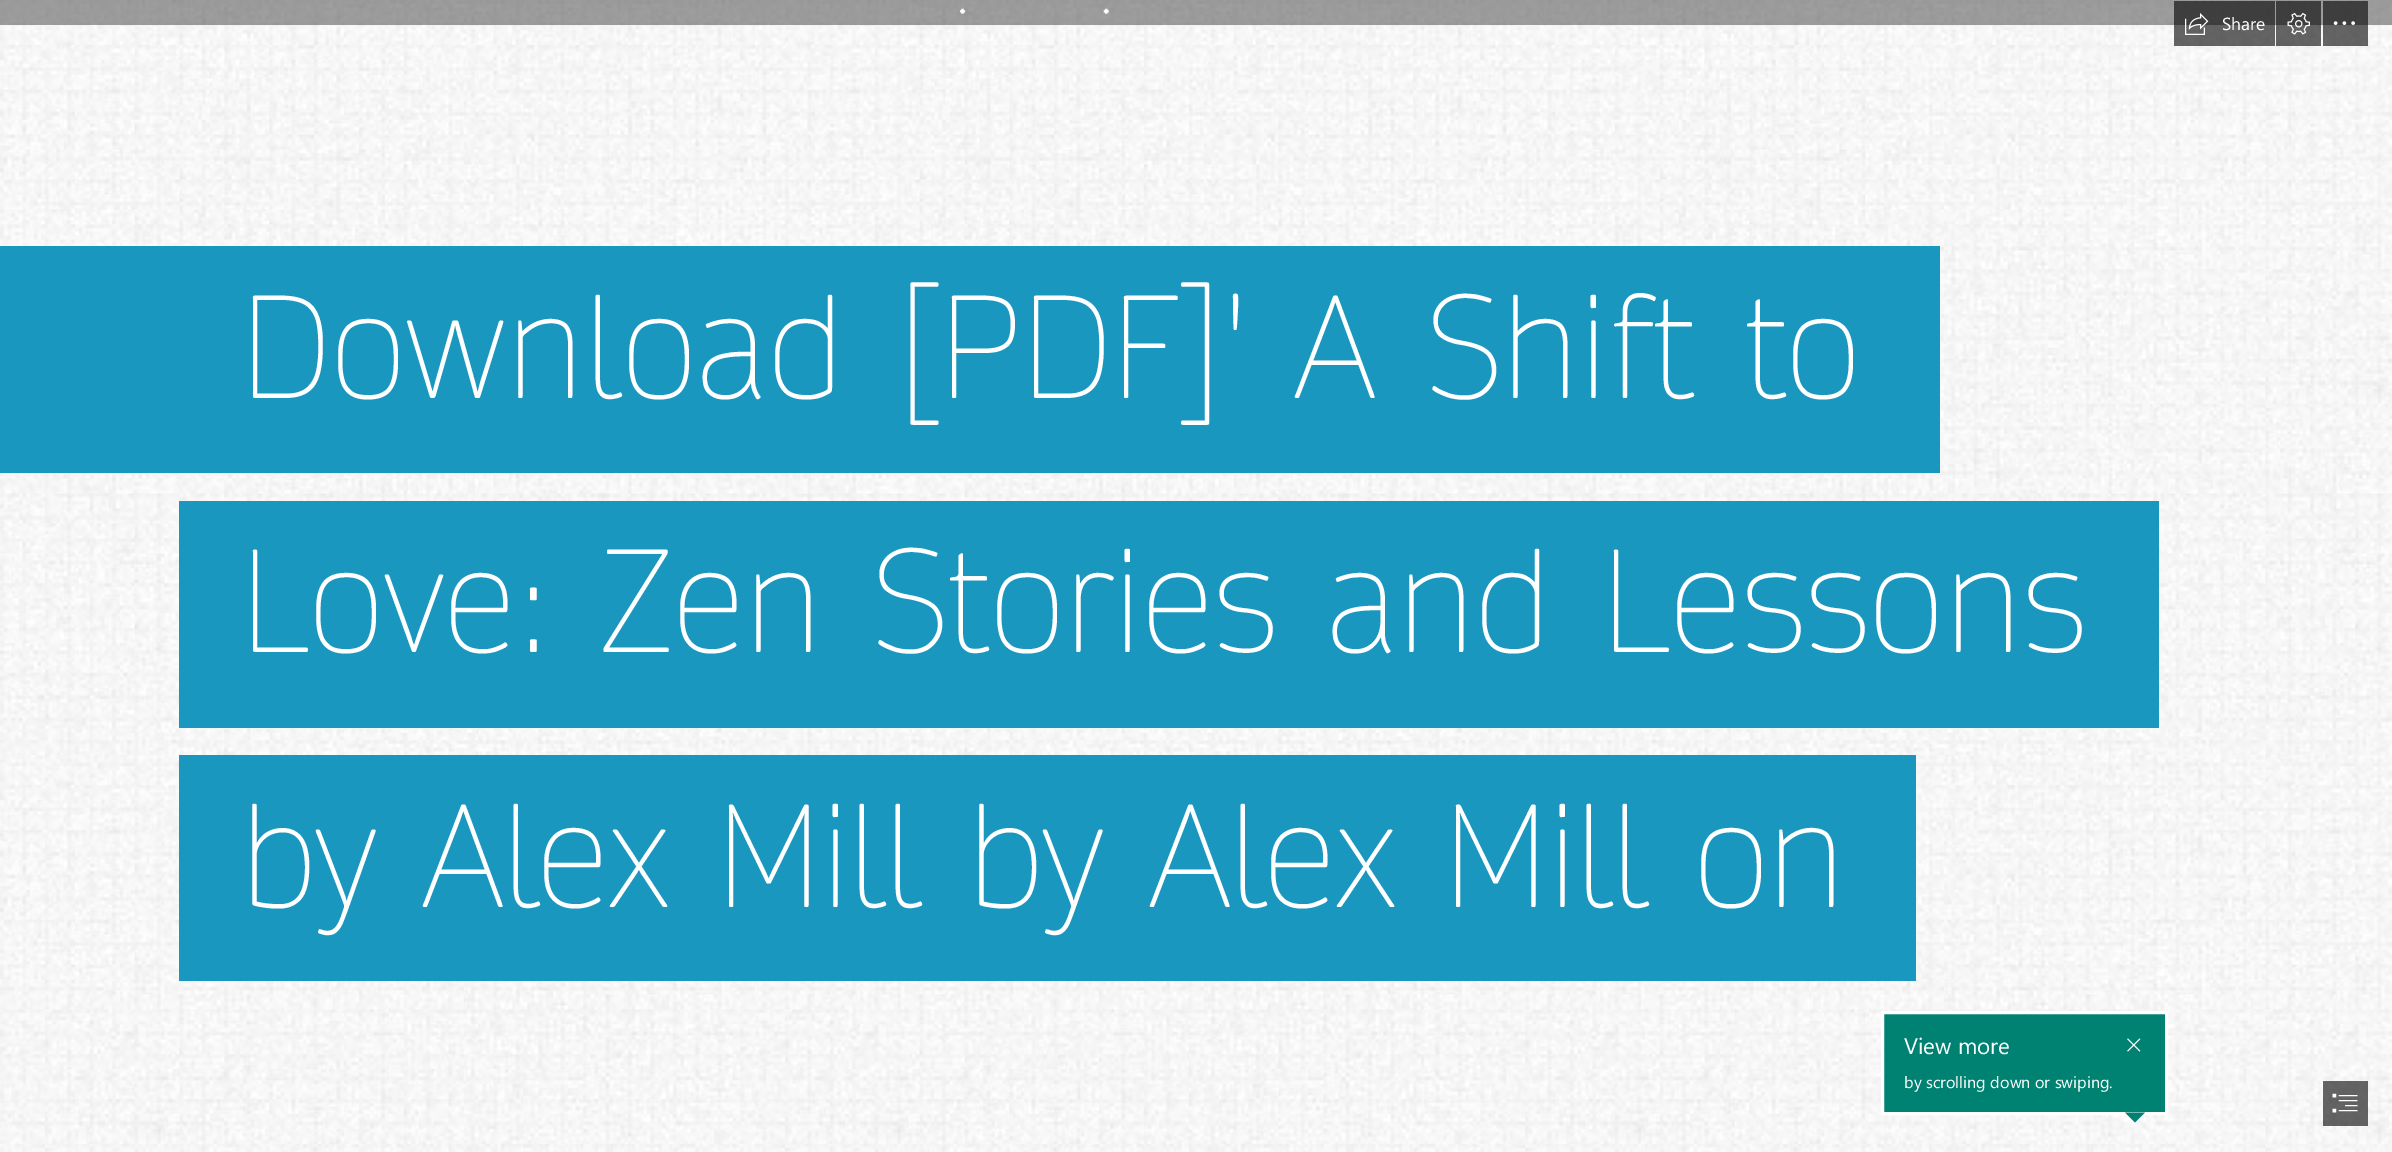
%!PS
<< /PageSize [2392 1152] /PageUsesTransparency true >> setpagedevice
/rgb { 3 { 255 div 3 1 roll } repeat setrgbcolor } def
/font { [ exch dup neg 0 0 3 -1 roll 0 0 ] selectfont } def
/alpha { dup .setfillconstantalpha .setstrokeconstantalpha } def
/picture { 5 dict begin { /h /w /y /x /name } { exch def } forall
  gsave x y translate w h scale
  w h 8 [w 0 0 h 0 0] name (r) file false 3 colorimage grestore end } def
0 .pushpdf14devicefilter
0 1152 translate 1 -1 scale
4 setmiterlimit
234 234 234 rgb
0 0 2392 1152 rectfill
(img/5.rgb) 0 0 2392 1152 picture
0.5 alpha
64 64 64 rgb
0 0 2392 25 rectfill
0.6 alpha
0 0 0 rgb
2174 1 101 45 rectfill
1 alpha
(img/1.rgb) 2185 13 24 22 picture
0.6 alpha
2276 1 45 45 rectfill
1 alpha
(img/2.rgb) 2287 12 23 23 picture
0.6 alpha
2323 1 45 45 rectfill
1 alpha
(img/3.rgb) 2333 21 22 4 picture
(img/4.rgb) 959 8 150 6 picture
[
  [0 246 1940 227 25 151 190]
  [179 501 1980 227 25 151 190]
  [179 755 1737 226 25 151 190]
] { aload pop rgb rectfill } forall
0 130 114 rgb
1882.5 1012.5 moveto 2166.5 1012.5 lineto 2166.5 1113.5 lineto 1882.5 1113.5 lineto closepath gsave fill grestore
255 255 255 rgb
3 setlinewidth
stroke
(img/6.rgb) 2127 1038 14 14 picture
2122.5 1112.5 moveto 2147.5 1112.5 lineto 2135 1125 lineto closepath fill
0 130 114 rgb
2125 1112.5 moveto 2145 1112.5 lineto 2135 1122.5 lineto closepath fill
0.6 alpha
0 0 0 rgb
2323 1081 45 45 rectfill
1 alpha
(img/7.rgb) 2332 1093 26 20 picture
/SegoeUI-Regular 17.5 font
255 255 255 rgb
2222 30 moveto (Share) show
/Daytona-Thin 140.25 font
239 398 moveto -1.6 0 (Download [PDF]' A Shift to) ashow
239 652 moveto -1.8 0 (Love: Zen Stories and Lessons) ashow
239 907 moveto -3.25 0 (by Alex Mill by Alex Mill on) ashow
/SegoeUI-Regular 22.5 font
1904 1054 moveto (View more) show
/SegoeUI-Regular 16.25 font
1904 1088 moveto (by scrolling down or swiping.) show
.poppdf14devicefilter showpage
